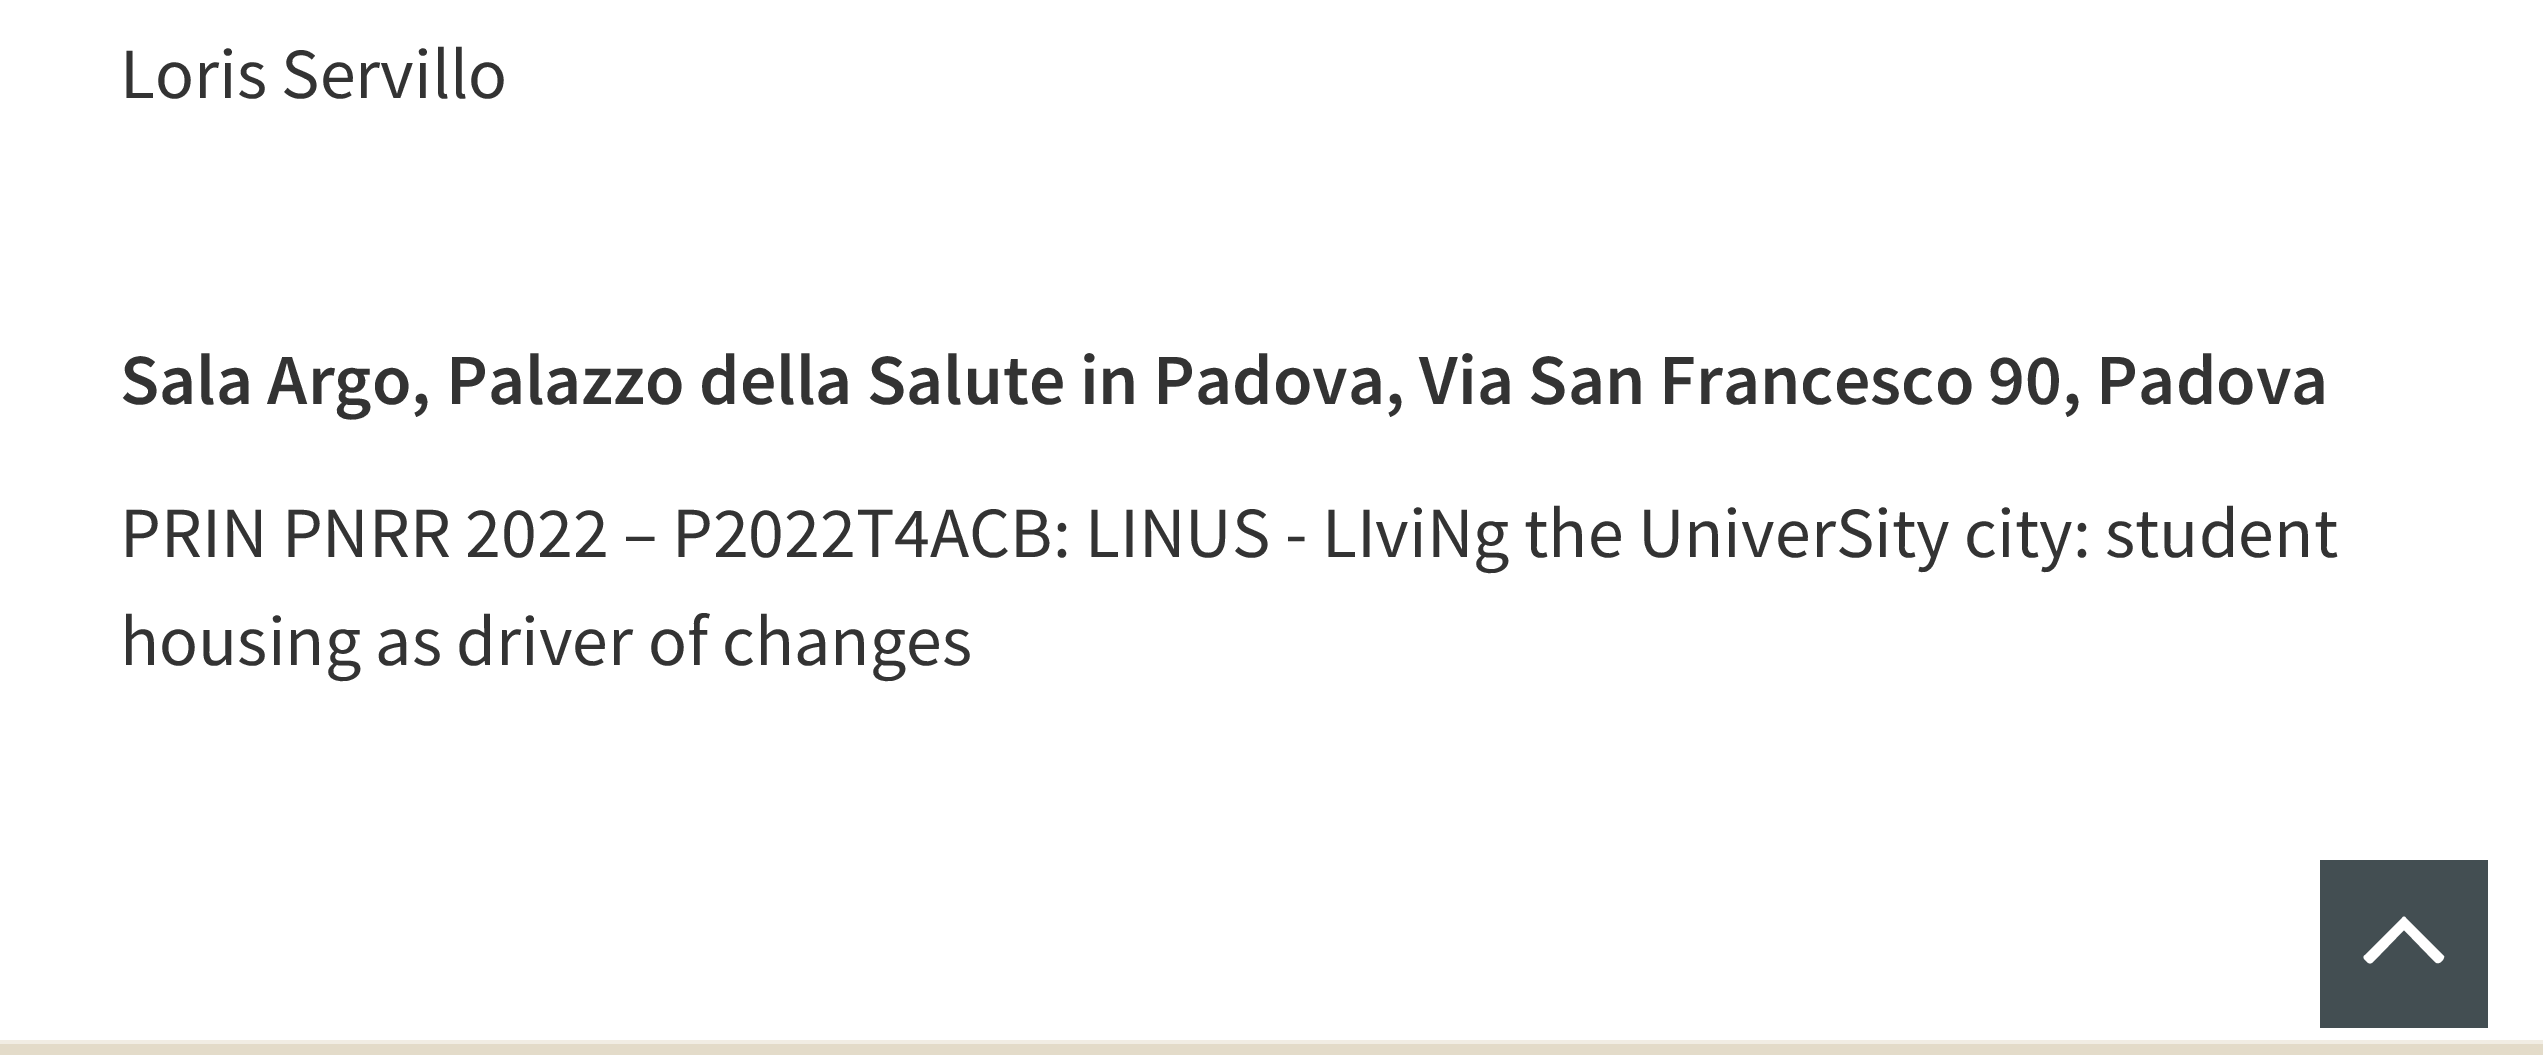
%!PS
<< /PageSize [2543 1055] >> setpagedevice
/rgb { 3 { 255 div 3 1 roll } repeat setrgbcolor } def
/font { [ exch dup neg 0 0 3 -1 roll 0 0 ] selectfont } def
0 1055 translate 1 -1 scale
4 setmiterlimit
255 255 255 rgb
0 0 2543 1055 rectfill
67 78 82 rgb
2320 860 168 168 rectfill
255 255 255 rgb
2406 918 moveto 2444 956 lineto 2445 959 2439 966 2435 962 curveto 2404 930 lineto 2373 962 lineto 2371 964 2369 964 2367 962 curveto 2365 960 lineto 2363 958 2363 956 2365 955 curveto 2402 918 lineto 2403 916 2405 916 2406 918 curveto closepath fill
227 219 201 rgb
0 1044 2543 11 rectfill
241 237 228 rgb
0 1040 2543 4 rectfill
/SourceSansPro-Regular 72 font
51 51 51 rgb
120 98 moveto (Loris Servillo) show
/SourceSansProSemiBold-SemiBold 72 font
120 404 moveto (Sala Argo, Palazzo della Salute in Padova, Via San Francesco 90, Padova) show
/SourceSansPro-Regular 72 font
120 557 moveto (PRIN PNRR 2022 – P2022T4ACB: LINUS - LIviNg the UniverSity city: student) show
120 665 moveto (housing as driver of changes) show
showpage
